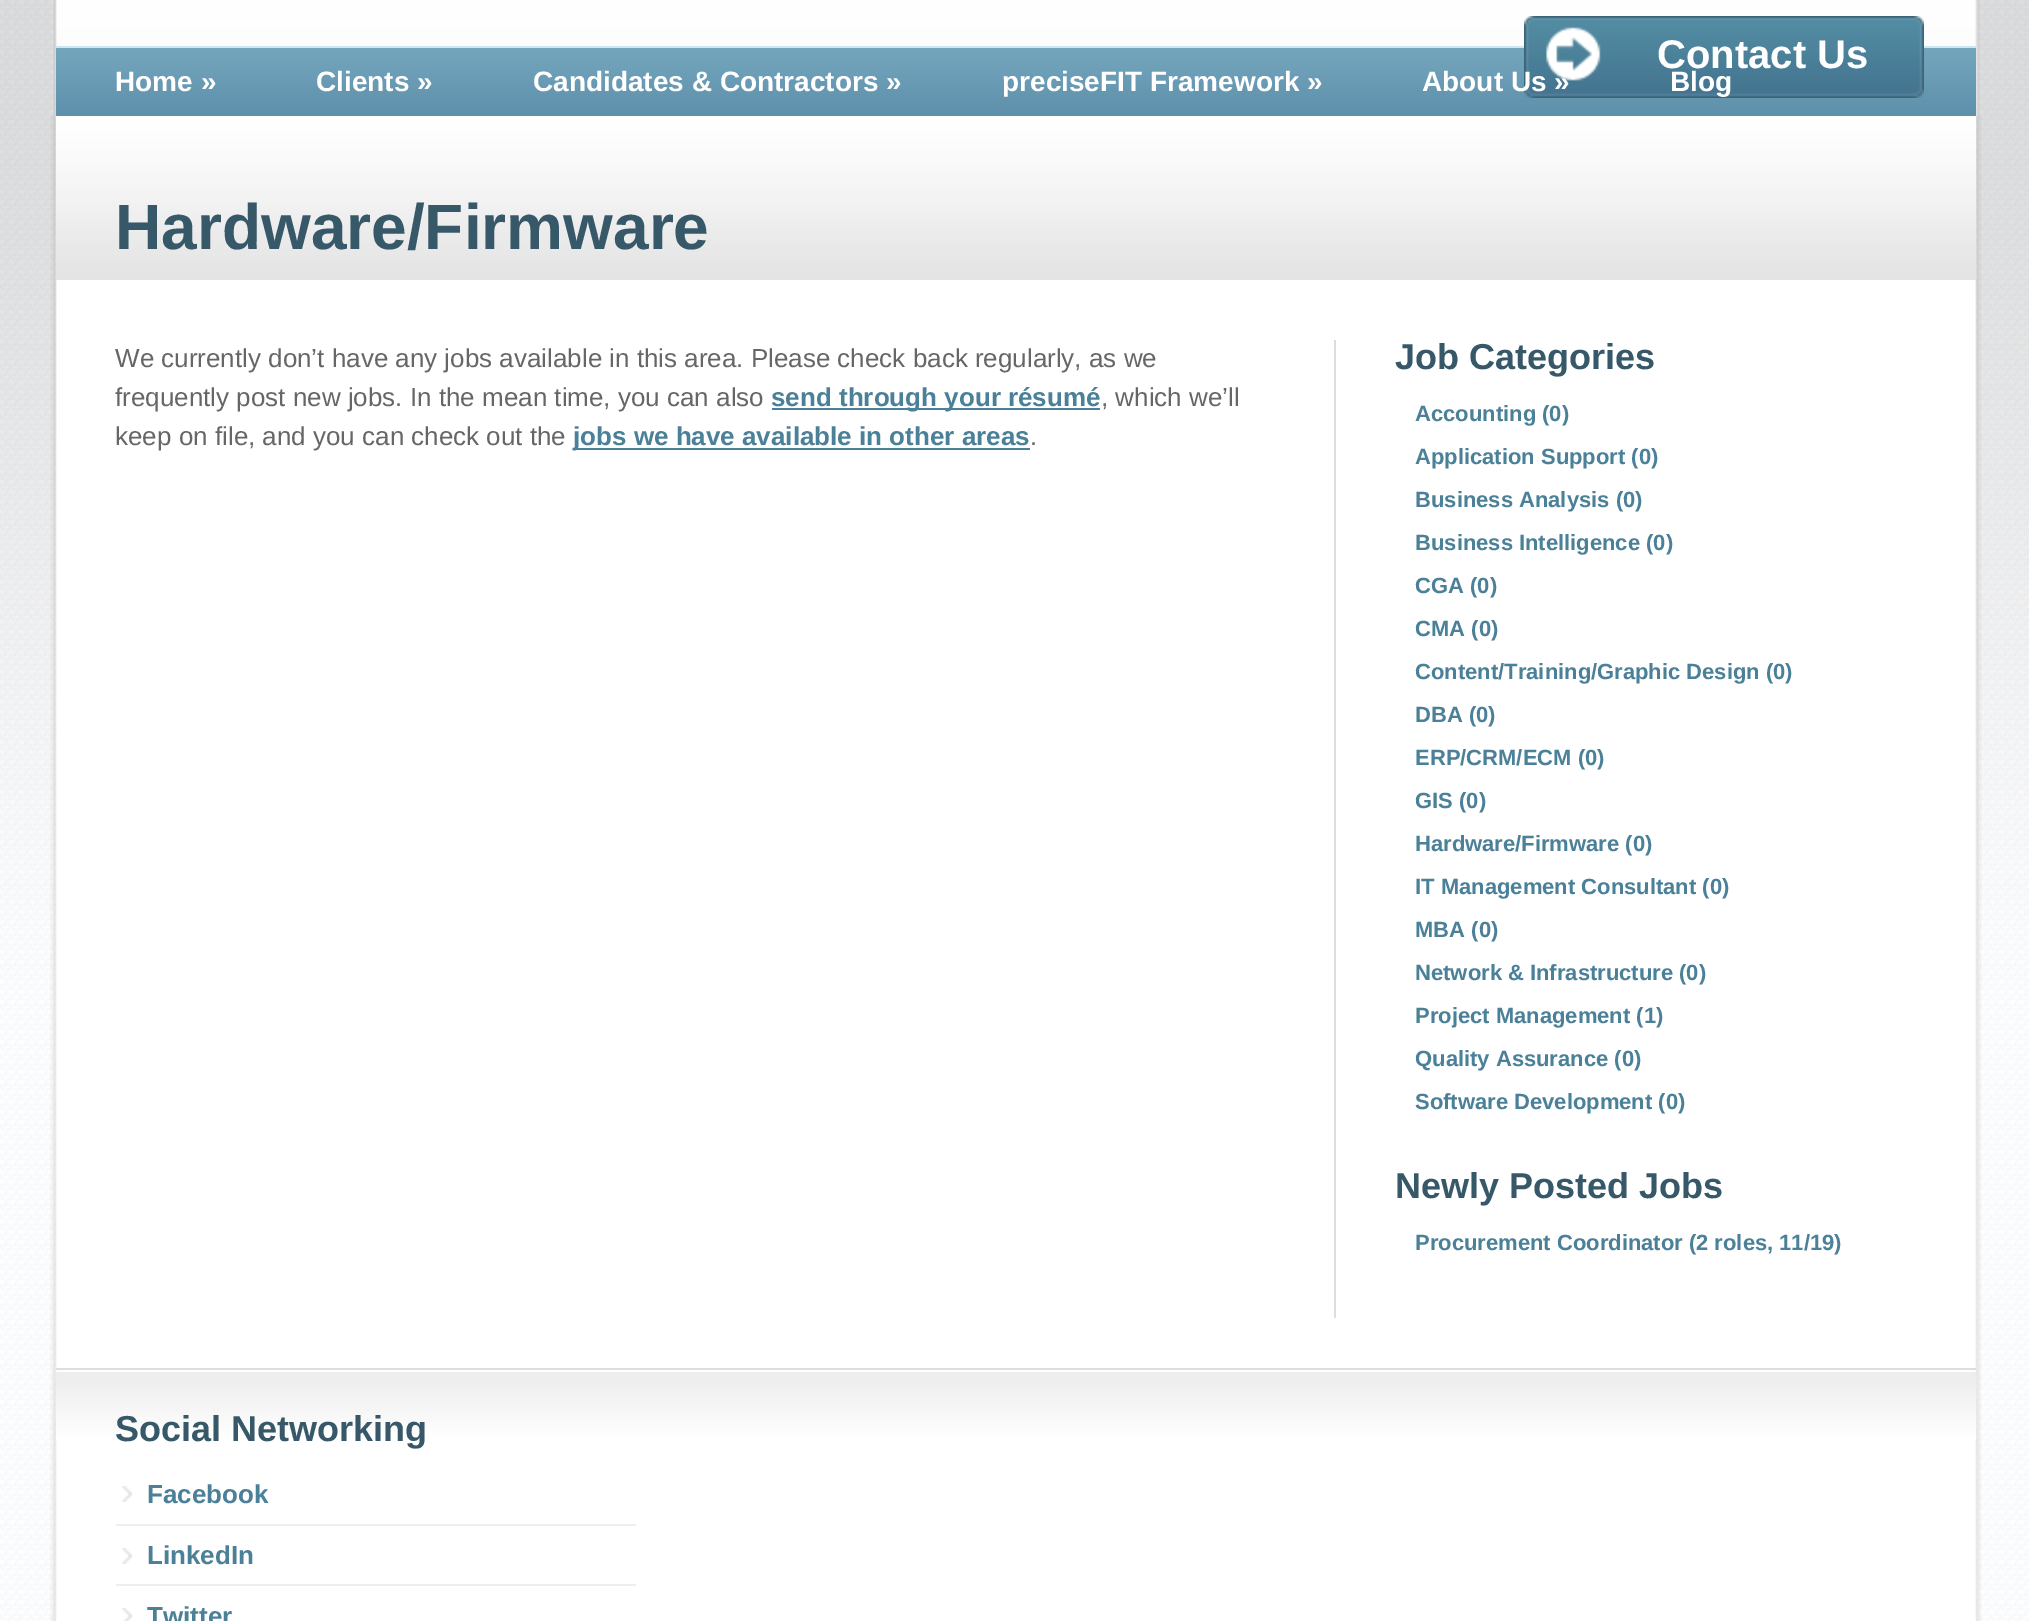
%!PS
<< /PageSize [2029 1621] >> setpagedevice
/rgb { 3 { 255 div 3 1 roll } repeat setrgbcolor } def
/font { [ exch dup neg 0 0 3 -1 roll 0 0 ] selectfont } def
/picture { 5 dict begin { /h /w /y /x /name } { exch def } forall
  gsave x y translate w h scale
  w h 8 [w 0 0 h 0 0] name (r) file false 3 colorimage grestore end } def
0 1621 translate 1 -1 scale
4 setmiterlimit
255 255 255 rgb
0 0 2029 1621 rectfill
(img/1.rgb) 0 0 2029 1621 picture
(img/2.rgb) 53 0 1927 116 picture
(img/5.rgb) 56 48 1920 68 picture
206 230 241 rgb
56 46 1920 2 rectfill
(img/3.rgb) 1524 16 92 82 picture
(img/4.rgb) 1616 16 308 82 picture
(img/6.rgb) 50 116 1932 1505 picture
(img/7.rgb) 56 116 1920 164 picture
[
  [772 408 328 2 75 128 153]
  [574 448 456 2 75 128 153]
  [1334 340 2 978 221 221 221]
] { aload pop rgb rectfill } forall
(img/8.rgb) 56 1372 1920 68 picture
56 1368 1920 2 rectfill
(img/9.rgb) 122 1486 10 16 picture
238 238 238 rgb
116 1524 520 2 rectfill
(img/9.rgb) 122 1548 10 16 picture
116 1584 520 2 rectfill
(img/10.rgb) 122 1608 10 13 picture
/LiberationSans-Bold 40 font
255 255 255 rgb
1657 68 moveto (Contact Us) show
/LiberationSans-Bold 28 font
[
  [(Home ») 115 91]
  [(Clients ») 316 91]
  [(Candidates & Contractors ») 533 91]
  [(preciseFIT Framework ») 1002 91]
  [(About Us ») 1422 91]
  [(Blog) 1670 91]
] { aload pop moveto show } forall
/LiberationSans-Bold 64 font
54 88 104 rgb
115 249 moveto (Hardware/Firmware) show
/LiberationSans-Regular 26 font
102 102 102 rgb
115 367 moveto (We currently don’t have any jobs available in this area. Please check back regularly, as we) show
115 406 moveto (frequently post new jobs. In the mean time, you can also) show
/LiberationSans-Bold 26 font
75 128 153 rgb
771 406 moveto (send through your résumé) show
/LiberationSans-Regular 26 font
102 102 102 rgb
1101 406 moveto (, which we’ll) show
115 445 moveto (keep on file, and you can check out the) show
/LiberationSans-Bold 26 font
75 128 153 rgb
573 445 moveto (jobs we have available in other areas) show
/LiberationSans-Regular 26 font
102 102 102 rgb
1030 445 moveto (.) show
/LiberationSans-Bold 36 font
54 88 104 rgb
1395 369 moveto (Job Categories) show
/LiberationSans-Bold 22 font
75 128 153 rgb
[
  [(Accounting \(0\)) 1415 421]
  [(Application Support \(0\)) 1415 464]
  [(Business Analysis \(0\)) 1415 507]
  [(Business Intelligence \(0\)) 1415 550]
  [(CGA \(0\)) 1415 593]
  [(CMA \(0\)) 1415 636]
  [(Content/Training/Graphic Design \(0\)) 1415 679]
  [(DBA \(0\)) 1415 722]
  [(ERP/CRM/ECM \(0\)) 1415 765]
  [(GIS \(0\)) 1415 808]
  [(Hardware/Firmware \(0\)) 1415 851]
  [(IT Management Consultant \(0\)) 1415 894]
  [(MBA \(0\)) 1415 937]
  [(Network & Infrastructure \(0\)) 1415 980]
  [(Project Management \(1\)) 1415 1023]
  [(Quality Assurance \(0\)) 1415 1066]
  [(Software Development \(0\)) 1415 1109]
] { aload pop moveto show } forall
/LiberationSans-Bold 36 font
54 88 104 rgb
1395 1198 moveto (Newly Posted Jobs) show
/LiberationSans-Bold 22 font
75 128 153 rgb
1415 1250 moveto (Procurement Coordinator \(2 roles, 11/19\)) show
/LiberationSans-Bold 36 font
54 88 104 rgb
115 1441 moveto (Social Networking) show
/LiberationSans-Bold 26 font
75 128 153 rgb
[
  [(Facebook) 147 1503]
  [(LinkedIn) 147 1564]
  [(Twitter) 147 1625]
] { aload pop moveto show } forall
showpage
